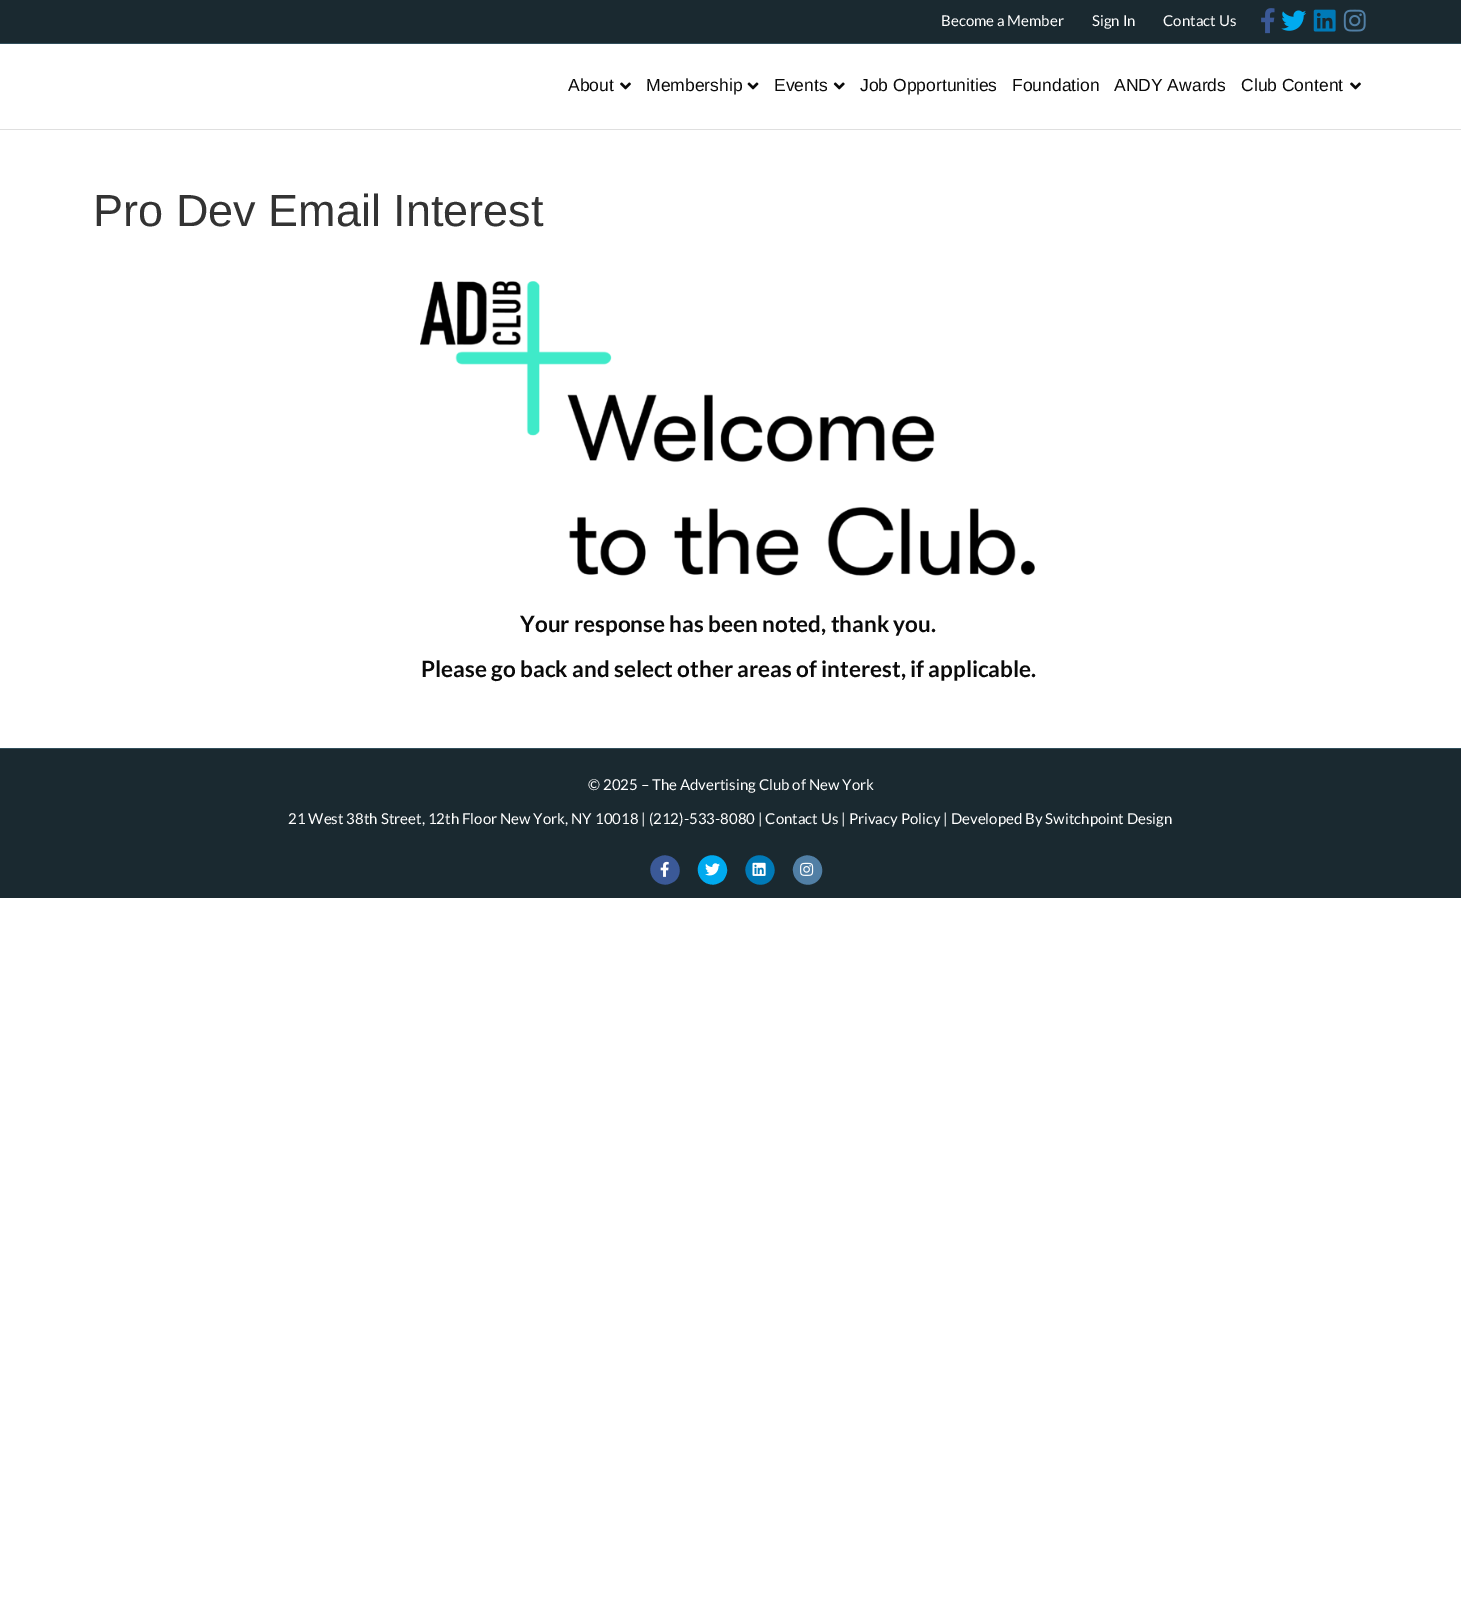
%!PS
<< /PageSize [1461 1622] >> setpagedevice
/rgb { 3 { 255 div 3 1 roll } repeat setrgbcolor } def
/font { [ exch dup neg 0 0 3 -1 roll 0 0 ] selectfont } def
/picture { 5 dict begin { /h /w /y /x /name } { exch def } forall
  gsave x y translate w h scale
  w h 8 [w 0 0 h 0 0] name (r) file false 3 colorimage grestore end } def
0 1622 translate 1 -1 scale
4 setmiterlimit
255 255 255 rgb
0 0 1461 1622 rectfill
26 41 48 rgb
0 0 1461 43 rectfill
49 78 91 rgb
0 43 1461 1 rectfill
(img/1.rgb) 1261 8 14 26 picture
(img/2.rgb) 1281 10 25 21 picture
(img/3.rgb) 1313 9 23 23 picture
(img/4.rgb) 1343 9 23 23 picture
223 223 223 rgb
0 129 1461 1 rectfill
(img/5.rgb) 620 82 11 8 picture
(img/6.rgb) 747 82 12 8 picture
(img/7.rgb) 833 82 12 8 picture
(img/5.rgb) 1350 82 11 8 picture
(img/8.rgb) 420 281 615 295 picture
26 41 48 rgb
0 749 1461 149 rectfill
49 78 91 rgb
0 748 1461 1 rectfill
59 89 151 rgb
654.5 859.5 moveto 657 857.5 660 856 663.5 855.5 curveto 677 854.5 685 870.5 675.5 880.5 curveto 673 882.5 670 884 666.5 884.5 curveto 653 885.5 645 869.5 654.5 859.5 curveto closepath fill
(img/9.rgb) 660 861 9 16 picture
0 170 239 rgb
702 859.5 moveto 712 850 728 858 727 871.5 curveto 726.5 875 725 878 723 880.5 curveto 720.5 882.5 717.5 884 714 884.5 curveto 700.5 885.5 692.5 869.5 702 859.5 curveto closepath fill
(img/10.rgb) 705 863 15 13 picture
0 122 184 rgb
749.5 859.5 moveto 759.5 850 775.5 858 774.5 871.5 curveto 774 875 772.5 878 770.5 880.5 curveto 760.5 890 744.5 882 745.5 868.5 curveto 746 865 747.5 862 749.5 859.5 curveto closepath fill
(img/11.rgb) 752 862 14 14 picture
81 127 165 rgb
797 859.5 moveto 799.5 857.5 802.5 856 806 855.5 curveto 819.5 854.5 827.5 870.5 818 880.5 curveto 808 890 792 882 793 868.5 curveto 793.5 865 795 862 797 859.5 curveto closepath fill
(img/12.rgb) 800 862 14 14 picture
/Lato-Regular 15 font
255 255 255 rgb
[
  [(Become a Member) 941 26]
  [(Sign In) 1092 26]
  [(Contact Us) 1163 26]
] { aload pop moveto show } forall
/LiberationSans-Regular 17.5 font
10 10 10 rgb
[
  [(About) 568 91]
  [(Membership) 646 91]
  [(Events) 774 91]
  [(Job Opportunities) 860 91]
  [(Foundation) 1012 91]
  [(ANDY Awards) 1114 91]
  [(Club Content) 1241 91]
] { aload pop moveto show } forall
/LiberationSans-Regular 45 font
51 51 51 rgb
93 226 moveto (Pro Dev Email Interest) show
/Lato-Bold 22.5 font
10 10 10 rgb
520 632 moveto (Your response has been noted, thank you.) show
421 677 moveto (Please go back and select other areas of interest, if applicable.) show
/Lato-Regular 15 font
255 255 255 rgb
588 790 moveto (© 2025 – The Advertising Club of New York) show
288 824 moveto (21 West 38th Street, 12th Floor New York, NY 10018 | \(212\)-533-8080 | Contact Us | Privacy Policy | Developed By Switchpoint Design) show
showpage
